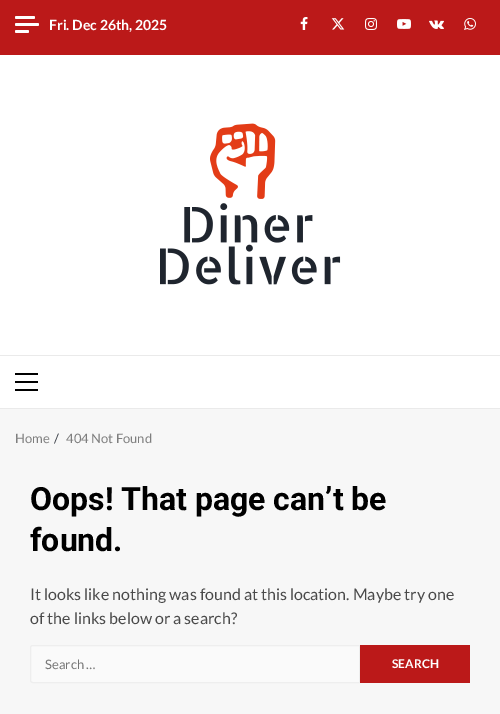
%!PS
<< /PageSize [500 714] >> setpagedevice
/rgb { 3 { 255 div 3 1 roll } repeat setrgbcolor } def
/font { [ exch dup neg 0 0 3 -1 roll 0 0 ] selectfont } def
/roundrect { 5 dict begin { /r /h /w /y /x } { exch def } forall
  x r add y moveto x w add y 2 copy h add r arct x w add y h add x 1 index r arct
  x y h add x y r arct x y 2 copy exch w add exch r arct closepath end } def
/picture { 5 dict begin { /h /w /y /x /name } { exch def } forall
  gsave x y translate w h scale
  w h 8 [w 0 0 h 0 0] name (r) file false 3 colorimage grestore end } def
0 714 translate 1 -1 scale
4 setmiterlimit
247 247 247 rgb
0 0 500 714 rectfill
255 255 255 rgb
0 55 500 353 rectfill
187 25 25 rgb
0 0 500 55 rectfill
255 255 255 rgb
15 16 20 3 1.5 roundrect fill
15 23 24 3 1.5 roundrect fill
15 30 14 3 1.5 roundrect fill
(img/1.rgb) 300 17 8 13 picture
(img/2.rgb) 331 18 14 12 picture
(img/3.rgb) 365 18 12 12 picture
(img/4.rgb) 397 19 14 10 picture
(img/5.rgb) 429 20 15 9 picture
(img/6.rgb) 464 18 12 12 picture
(img/7.rgb) 160 123 181 162 picture
[
  [0 355 500 1 234 234 234]
  [0 408 500 1 234 234 234]
  [15 381 23 2 0 0 0]
  [15 373 23 2 0 0 0]
  [15 389 23 2 0 0 0]
] { aload pop rgb rectfill } forall
250 250 250 rgb
33 645.5 moveto 359.5 645.5 lineto 359.5 682.5 lineto 33 682.5 lineto 31.5 682.5 30.5 681.5 30.5 680 curveto 30.5 648 lineto 30.5 646.5 31.5 645.5 33 645.5 curveto closepath gsave fill grestore
238 238 238 rgb
stroke
187 25 25 rgb
360 645 110 38 rectfill
/Lato-Bold 14 font
255 255 255 rgb
49 30 moveto (Fri. Dec 26th, 2025) show
/Lato-Regular 13 font
126 126 126 rgb
15 443 moveto (Home) show
57 62 70 rgb
54 443 moveto (/) show
126 126 126 rgb
66 443 moveto (404 Not Found) show
/Roboto-Bold 32 font
0 0 0 rgb
30 510 moveto (Oops! That page can’t be) show
30 551 moveto (found.) show
/Lato-Regular 16 font
74 74 74 rgb
30 600 moveto (It looks like nothing was found at this location. Maybe try one) show
30 624 moveto (of the links below or a search?) show
/Lato-Regular 13 font
117 117 117 rgb
45 669 moveto (Search …) show
/Lato-Bold 12 font
255 255 255 rgb
392 668 moveto (SEARCH) show
showpage
